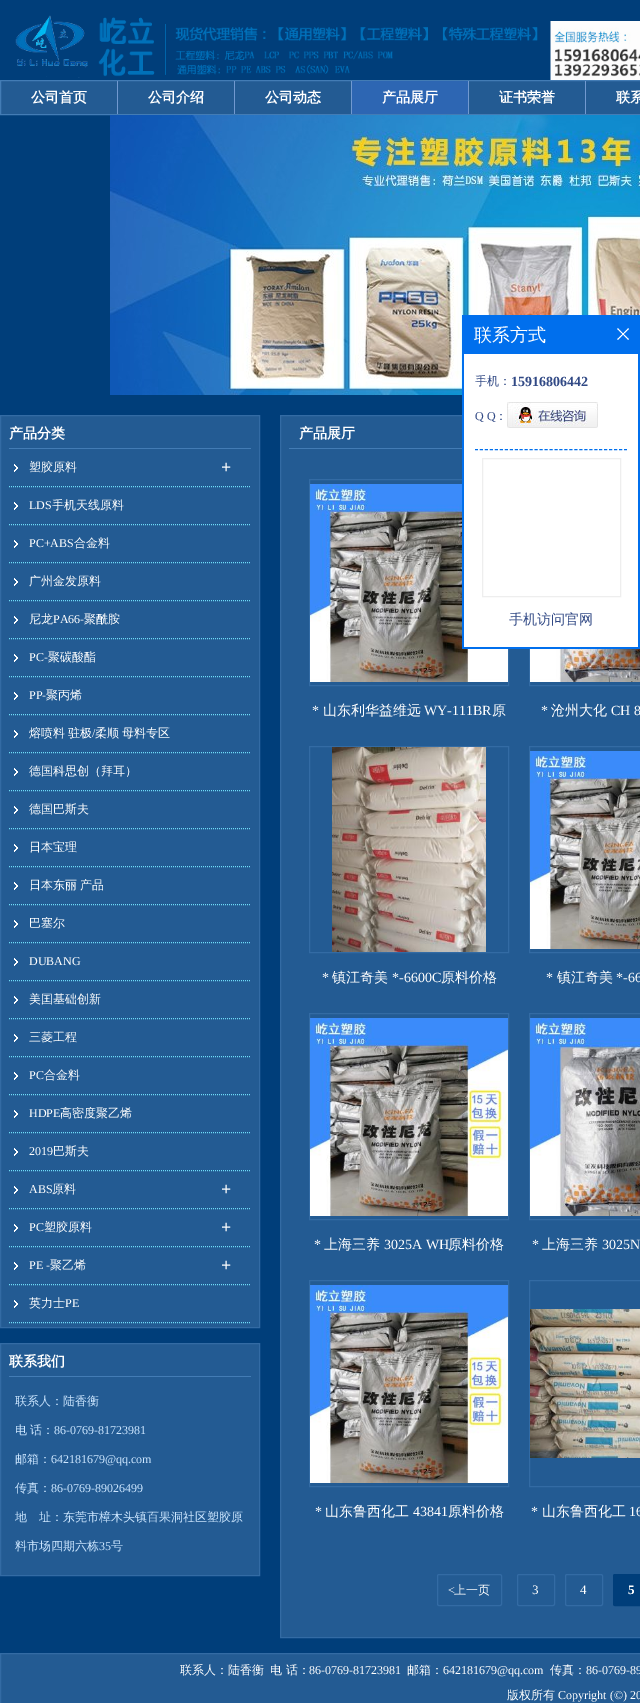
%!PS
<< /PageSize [640 1703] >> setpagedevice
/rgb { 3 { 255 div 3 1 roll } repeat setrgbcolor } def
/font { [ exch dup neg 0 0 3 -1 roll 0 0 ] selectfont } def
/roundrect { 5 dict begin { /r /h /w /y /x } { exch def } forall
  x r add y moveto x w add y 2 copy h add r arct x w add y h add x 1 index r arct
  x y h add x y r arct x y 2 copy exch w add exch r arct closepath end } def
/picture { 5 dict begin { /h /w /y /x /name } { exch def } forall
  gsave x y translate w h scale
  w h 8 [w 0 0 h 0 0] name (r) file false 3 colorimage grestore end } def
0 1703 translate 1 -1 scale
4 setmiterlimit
0 62 122 rgb
0 0 640 1703 rectfill
(img/1.rgb) 15 15 625 65 picture
35 91 147 rgb
0.5 80.5 moveto 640.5 80.5 lineto 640.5 114.5 lineto 0.5 114.5 lineto closepath gsave fill grestore
67 124 181 rgb
stroke
[
  [117 81 1 33 113 153 208]
  [234 81 1 33 113 153 208]
  [351 81 1 33 113 153 208]
  [352 81 116 33 45 102 179]
  [468 81 1 33 113 153 208]
  [585 81 1 33 113 153 208]
] { aload pop rgb rectfill } forall
(img/2.rgb) 110 115 530 280 picture
35 91 147 rgb
280.5 415.5 moveto 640.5 415.5 lineto 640.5 1637.5 lineto 280.5 1637.5 lineto closepath gsave fill grestore
51 107 164 rgb
stroke
309.5 479.5 199 206 rectstroke
(img/6.rgb) 310 484 198 198 picture
529.5 479.5 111 206 rectstroke
0 111 237 rgb
462 315 178 334 rectfill
(img/3.rgb) 617 328 12 12 picture
255 255 255 rgb
464 354 174 293 rectfill
0 111 237 rgb
[3 1.97] 0 setdash
475 449.5 moveto 627 449.5 lineto stroke
(img/4.rgb) 507 402 91 26 picture
238 238 238 rgb
[] 0 setdash
482.5 458.5 138 138 rectstroke
35 91 147 rgb
0.5 415.5 moveto 259.5 415.5 lineto 259.5 1327.5 lineto 0.5 1327.5 lineto closepath gsave fill grestore
51 107 164 rgb
stroke
67 124 181 rgb
9 448 242 1 rectfill
(img/5.rgb) 14 464 4 8 picture
111 221 248 rgb
[1 1] 0 setdash
9 486.5 moveto 251 486.5 lineto stroke
(img/5.rgb) 14 502 4 8 picture
9 524.5 moveto 251 524.5 lineto stroke
(img/5.rgb) 14 540 4 8 picture
9 562.5 moveto 251 562.5 lineto stroke
(img/5.rgb) 14 578 4 8 picture
9 600.5 moveto 251 600.5 lineto stroke
(img/5.rgb) 14 616 4 8 picture
9 638.5 moveto 251 638.5 lineto stroke
(img/5.rgb) 14 654 4 8 picture
9 676.5 moveto 251 676.5 lineto stroke
(img/5.rgb) 14 692 4 8 picture
9 714.5 moveto 251 714.5 lineto stroke
(img/5.rgb) 14 730 4 8 picture
9 752.5 moveto 251 752.5 lineto stroke
(img/5.rgb) 14 768 4 8 picture
9 790.5 moveto 251 790.5 lineto stroke
(img/5.rgb) 14 806 4 8 picture
9 828.5 moveto 251 828.5 lineto stroke
(img/5.rgb) 14 844 4 8 picture
9 866.5 moveto 251 866.5 lineto stroke
(img/5.rgb) 14 882 4 8 picture
9 904.5 moveto 251 904.5 lineto stroke
(img/5.rgb) 14 920 4 8 picture
9 942.5 moveto 251 942.5 lineto stroke
(img/5.rgb) 14 958 4 8 picture
9 980.5 moveto 251 980.5 lineto stroke
(img/5.rgb) 14 996 4 8 picture
9 1018.5 moveto 251 1018.5 lineto stroke
(img/5.rgb) 14 1034 4 8 picture
9 1056.5 moveto 251 1056.5 lineto stroke
(img/5.rgb) 14 1072 4 8 picture
9 1094.5 moveto 251 1094.5 lineto stroke
(img/5.rgb) 14 1110 4 8 picture
9 1132.5 moveto 251 1132.5 lineto stroke
(img/5.rgb) 14 1148 4 8 picture
9 1170.5 moveto 251 1170.5 lineto stroke
(img/5.rgb) 14 1186 4 8 picture
9 1208.5 moveto 251 1208.5 lineto stroke
(img/5.rgb) 14 1224 4 8 picture
9 1246.5 moveto 251 1246.5 lineto stroke
(img/5.rgb) 14 1262 4 8 picture
9 1284.5 moveto 251 1284.5 lineto stroke
(img/5.rgb) 14 1300 4 8 picture
9 1322.5 moveto 251 1322.5 lineto stroke
35 91 147 rgb
0.5 1343.5 moveto 259.5 1343.5 lineto 259.5 1575.5 lineto 0.5 1575.5 lineto closepath gsave fill grestore
51 107 164 rgb
[] 0 setdash
stroke
67 124 181 rgb
9 1376 242 1 rectfill
289 448 173 1 rectfill
(img/7.rgb) 530 649 110 33 picture
51 107 164 rgb
309.5 746.5 199 206 rectstroke
(img/8.rgb) 332 747 154 205 picture
529.5 746.5 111 206 rectstroke
(img/9.rgb) 530 751 110 198 picture
309.5 1013.5 199 206 rectstroke
(img/6.rgb) 310 1018 198 198 picture
529.5 1013.5 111 206 rectstroke
(img/10.rgb) 530 1018 110 198 picture
309.5 1280.5 199 206 rectstroke
(img/11.rgb) 310 1285 198 198 picture
529.5 1280.5 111 206 rectstroke
(img/12.rgb) 530 1309 110 149 picture
437.5 1574.5 64 31 1.5 roundrect stroke
517.5 1574.5 37 31 1.5 roundrect stroke
565.5 1574.5 37 31 1.5 roundrect stroke
0 62 122 rgb
613.5 1574.5 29 31 1.5 roundrect gsave fill grestore
stroke
35 91 147 rgb
0.5 1653.5 moveto 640.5 1653.5 lineto 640.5 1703.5 lineto 0.5 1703.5 lineto closepath gsave fill grestore
51 107 164 rgb
stroke
/WenQuanYiZenHei-Bold 14 font
255 255 255 rgb
[
  [(公司首页) 31 102]
  [(公司介绍) 148 102]
  [(公司动态) 265 102]
  [(产品展厅) 382 102]
  [(证书荣誉) 499 102]
  [(联系) 616 102]
] { aload pop moveto show } forall
/WenQuanYiZenHei-Medium 18 font
474 341 moveto (联系方式) show
/WenQuanYiZenHei-Medium 12 font
49 73 133 rgb
475 385 moveto (手机：) show
/LiberationSerif-Bold 14 font
511 386 moveto (15916806442) show
/LiberationSerif-Regular 12 font
475 420 moveto (Q Q) show
/WenQuanYiZenHei-Medium 12 font
495 420 moveto (：) show
/WenQuanYiZenHei-Medium 14 font
509 624 moveto (手机访问官网) show
/WenQuanYiZenHei-Bold 14 font
255 255 255 rgb
9 438 moveto (产品分类) show
/WenQuanYiZenHei-Medium 12 font
29 471 moveto (塑胶原料) show
/LiberationSerif-Bold 18 font
221 473 moveto (+) show
/LiberationSerif-Regular 12 font
29 509 moveto (LDS) show
/WenQuanYiZenHei-Medium 12 font
52 509 moveto (手机天线原料) show
/LiberationSerif-Regular 12 font
29 547 moveto (PC+ABS) show
/WenQuanYiZenHei-Medium 12 font
[
  [(合金料) 74 547]
  [(广州金发原料) 29 585]
  [(尼龙) 29 623]
] { aload pop moveto show } forall
/LiberationSerif-Regular 12 font
53 623 moveto (PA66-) show
/WenQuanYiZenHei-Medium 12 font
84 623 moveto (聚酰胺) show
/LiberationSerif-Regular 12 font
29 661 moveto (PC-) show
/WenQuanYiZenHei-Medium 12 font
48 661 moveto (聚碳酸酯) show
/LiberationSerif-Regular 12 font
29 699 moveto (PP-) show
/WenQuanYiZenHei-Medium 12 font
46 699 moveto (聚丙烯) show
29 737 moveto -1 0 32 (熔喷料 驻极) widthshow
/LiberationSerif-Regular 12 font
92 737 moveto (/) show
/WenQuanYiZenHei-Medium 12 font
95 737 moveto -1 0 32 (柔顺 母料专区) widthshow
[
  [(德国科思创（拜耳）) 29 775]
  [(德国巴斯夫) 29 813]
  [(日本宝理) 29 851]
] { aload pop moveto show } forall
29 889 moveto -1 0 32 (日本东丽 产品) widthshow
29 927 moveto (巴塞尔) show
/LiberationSerif-Regular 12 font
29 965 moveto (DUBANG) show
/WenQuanYiZenHei-Medium 12 font
29 1003 moveto (美囯基础创新) show
29 1041 moveto (三菱工程) show
/LiberationSerif-Regular 12 font
29 1079 moveto (PC) show
/WenQuanYiZenHei-Medium 12 font
44 1079 moveto (合金料) show
/LiberationSerif-Regular 12 font
29 1117 moveto (HDPE) show
/WenQuanYiZenHei-Medium 12 font
60 1117 moveto (高密度聚乙烯) show
/LiberationSerif-Regular 12 font
29 1155 moveto (2019) show
/WenQuanYiZenHei-Medium 12 font
53 1155 moveto (巴斯夫) show
/LiberationSerif-Regular 12 font
29 1193 moveto (ABS) show
/WenQuanYiZenHei-Medium 12 font
52 1193 moveto (原料) show
/LiberationSerif-Bold 18 font
221 1195 moveto (+) show
/LiberationSerif-Regular 12 font
29 1231 moveto (PC) show
/WenQuanYiZenHei-Medium 12 font
44 1231 moveto (塑胶原料) show
/LiberationSerif-Bold 18 font
221 1233 moveto (+) show
/LiberationSerif-Regular 12 font
29 1269 moveto (PE -) show
/WenQuanYiZenHei-Medium 12 font
50 1269 moveto (聚乙烯) show
/LiberationSerif-Bold 18 font
221 1271 moveto (+) show
/WenQuanYiZenHei-Medium 12 font
29 1307 moveto (英力士) show
/LiberationSerif-Regular 12 font
65 1307 moveto (PE) show
/WenQuanYiZenHei-Bold 14 font
9 1366 moveto (联系我们) show
/WenQuanYiZenHei-Medium 12 font
204 230 255 rgb
15 1405 moveto (联系人：陆香衡) show
15 1434 moveto -1 0 32 (电 话：) widthshow
/LiberationSerif-Regular 12 font
54 1434 moveto (86-0769-81723981) show
/WenQuanYiZenHei-Medium 12 font
15 1463 moveto (邮箱：) show
/LiberationSerif-Regular 12 font
51 1463 moveto (642181679@qq.com) show
/WenQuanYiZenHei-Medium 12 font
15 1492 moveto (传真：) show
/LiberationSerif-Regular 12 font
51 1492 moveto (86-0769-89026499) show
/WenQuanYiZenHei-Medium 12 font
15 1521 moveto (地　址：东莞市樟木头镇百果洞社区塑胶原) show
15 1550 moveto (料市场四期六栋) show
/LiberationSerif-Regular 12 font
99 1550 moveto (35) show
/WenQuanYiZenHei-Medium 12 font
111 1550 moveto (号) show
/WenQuanYiZenHei-Bold 14 font
255 255 255 rgb
299 438 moveto (产品展厅) show
/LiberationSerif-Regular 14 font
312 715 moveto (*) show
/WenQuanYiZenHei-Medium 14 font
323 715 moveto (山东利华益维远) show
/LiberationSerif-Regular 14 font
424 715 moveto (WY-111BR) show
/WenQuanYiZenHei-Medium 14 font
492 715 moveto (原) show
/LiberationSerif-Regular 14 font
541 715 moveto (*) show
/WenQuanYiZenHei-Medium 14 font
551 715 moveto (沧州大化) show
/LiberationSerif-Regular 14 font
611 715 moveto (CH 8) show
322 982 moveto (*) show
/WenQuanYiZenHei-Medium 14 font
332 982 moveto (镇江奇美) show
/LiberationSerif-Regular 14 font
392 982 moveto (*-6600C) show
/WenQuanYiZenHei-Medium 14 font
441 982 moveto (原料价格) show
/LiberationSerif-Regular 14 font
546 982 moveto (*) show
/WenQuanYiZenHei-Medium 14 font
557 982 moveto (镇江奇美) show
/LiberationSerif-Regular 14 font
616 982 moveto (*-66) show
314 1249 moveto (*) show
/WenQuanYiZenHei-Medium 14 font
324 1249 moveto (上海三养) show
/LiberationSerif-Regular 14 font
384 1249 moveto (3025A WH) show
/WenQuanYiZenHei-Medium 14 font
448 1249 moveto (原料价格) show
/LiberationSerif-Regular 14 font
532 1249 moveto (*) show
/WenQuanYiZenHei-Medium 14 font
542 1249 moveto (上海三养) show
/LiberationSerif-Regular 14 font
602 1249 moveto (3025N) show
315 1516 moveto (*) show
/WenQuanYiZenHei-Medium 14 font
325 1516 moveto (山东鲁西化工) show
/LiberationSerif-Regular 14 font
413 1516 moveto (43841) show
/WenQuanYiZenHei-Medium 14 font
448 1516 moveto (原料价格) show
/LiberationSerif-Regular 14 font
531 1516 moveto (*) show
/WenQuanYiZenHei-Medium 14 font
542 1516 moveto (山东鲁西化工) show
/LiberationSerif-Regular 14 font
629 1516 moveto (16) show
/LiberationSerif-Regular 12 font
448 1594 moveto (<) show
/WenQuanYiZenHei-Medium 12 font
454 1594 moveto (上一页) show
/LiberationSerif-Regular 13 font
532 1594 moveto (3) show
580 1594 moveto (4) show
/LiberationSerif-Bold 13 font
628 1594 moveto (5) show
/WenQuanYiZenHei-Medium 12 font
180 1674 moveto (联系人：陆香衡) show
270 1674 moveto (电 话：) show
/LiberationSerif-Regular 12 font
309 1674 moveto (86-0769-81723981) show
/WenQuanYiZenHei-Medium 12 font
407 1674 moveto (邮箱：) show
/LiberationSerif-Regular 12 font
443 1674 moveto (642181679@qq.com) show
/WenQuanYiZenHei-Medium 12 font
550 1674 moveto (传真：) show
/LiberationSerif-Regular 12 font
586 1674 moveto (86-0769-89) show
/WenQuanYiZenHei-Medium 12 font
507 1699 moveto (版权所有) show
/LiberationSerif-Regular 12 font
558 1699 moveto (Copyright \(©\) 20) show
showpage
